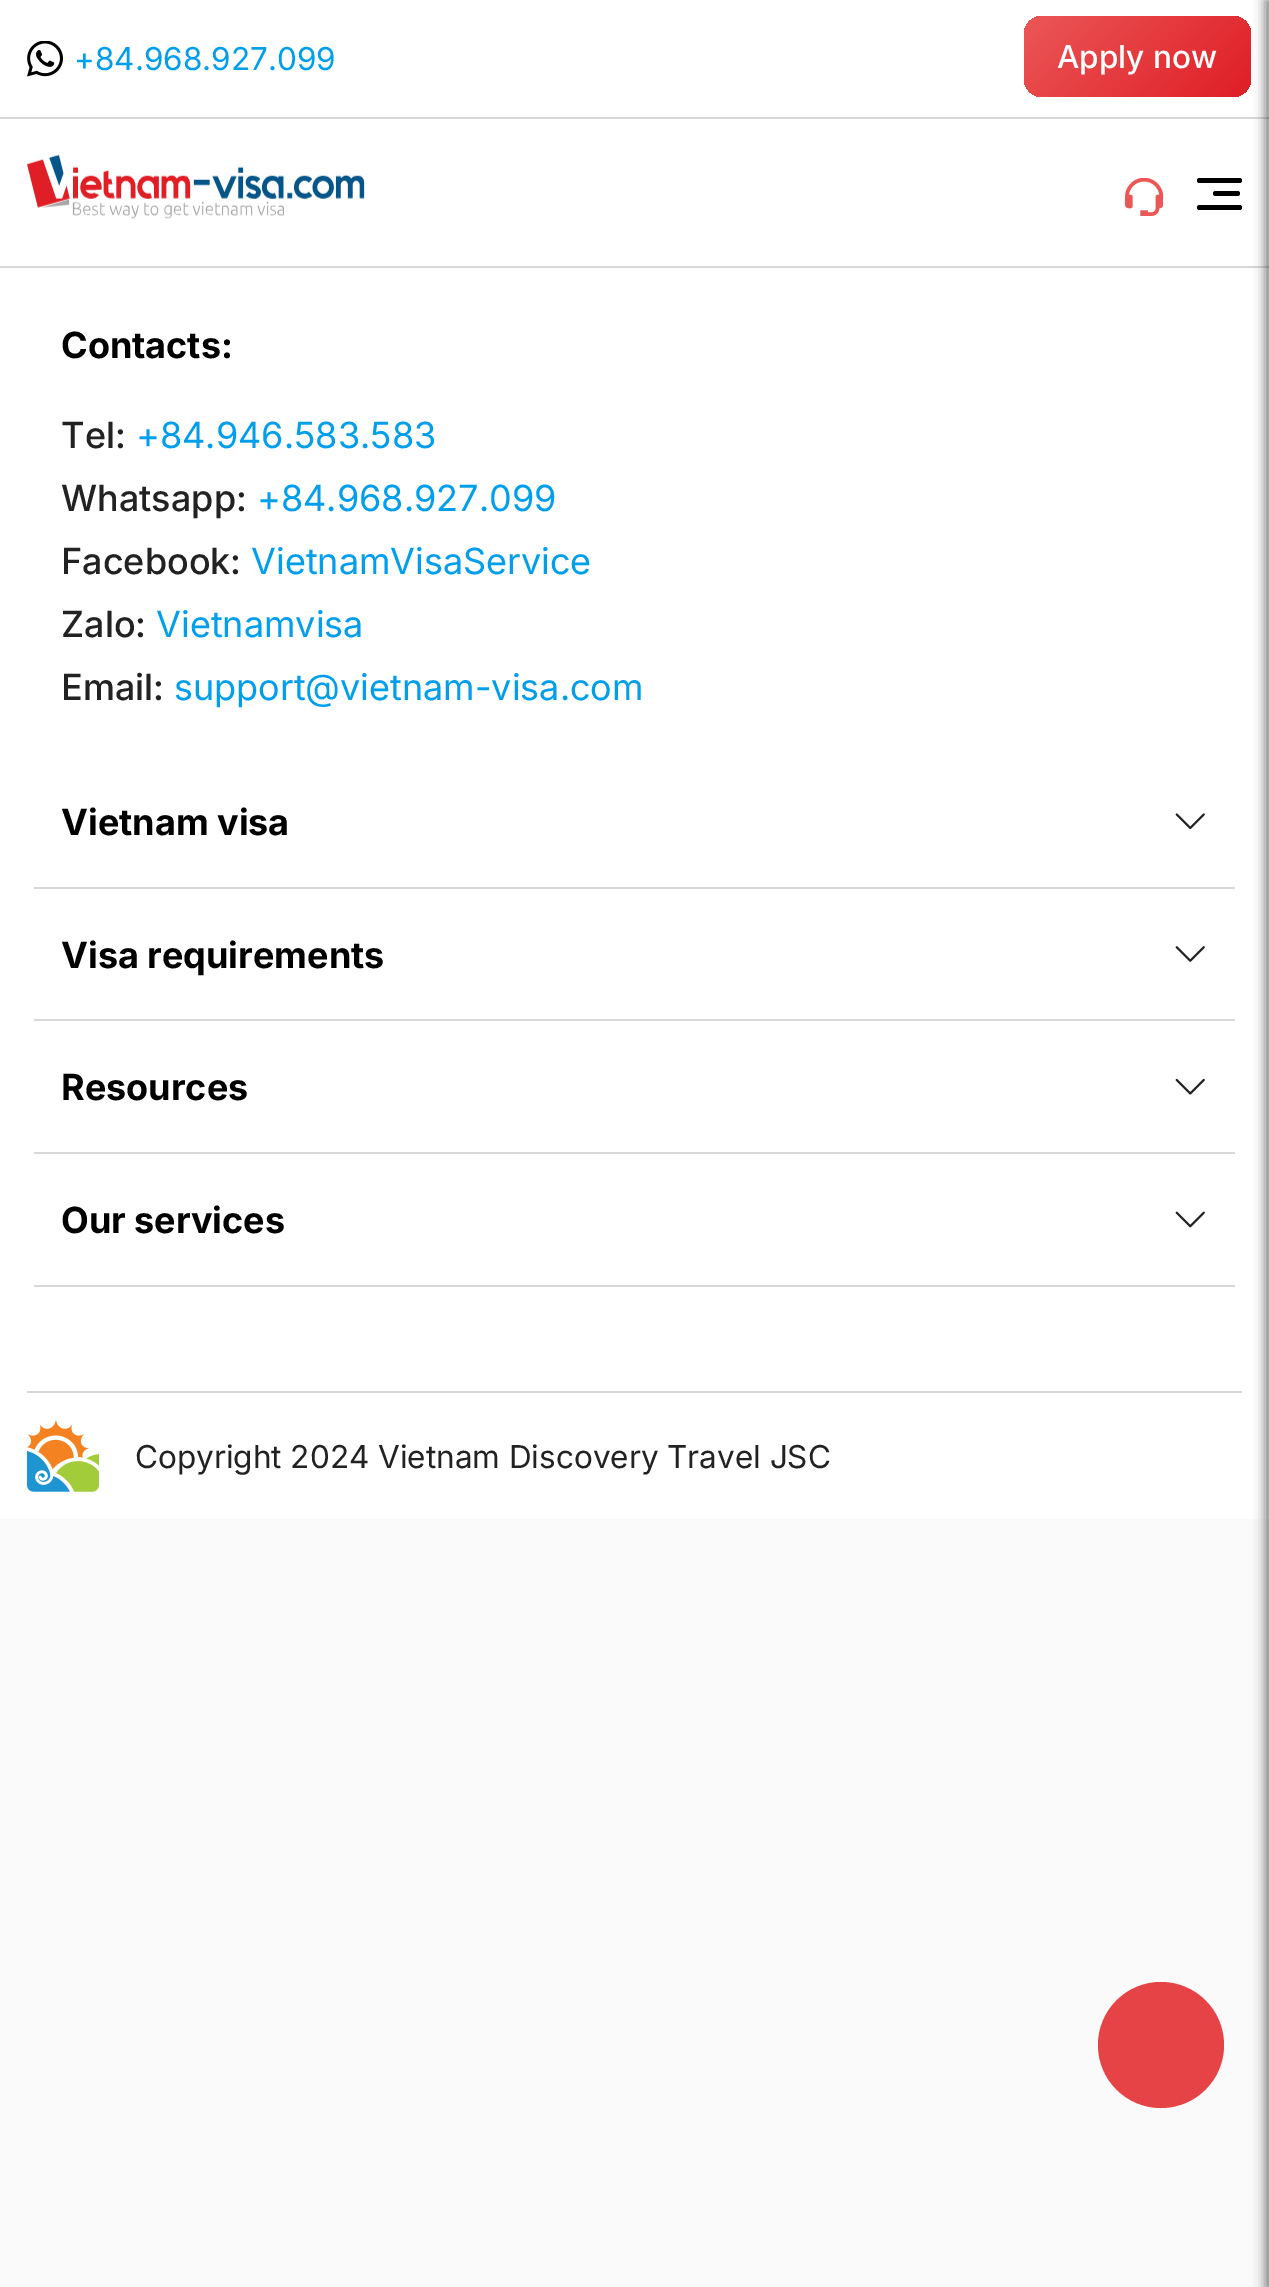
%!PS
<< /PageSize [1269 2287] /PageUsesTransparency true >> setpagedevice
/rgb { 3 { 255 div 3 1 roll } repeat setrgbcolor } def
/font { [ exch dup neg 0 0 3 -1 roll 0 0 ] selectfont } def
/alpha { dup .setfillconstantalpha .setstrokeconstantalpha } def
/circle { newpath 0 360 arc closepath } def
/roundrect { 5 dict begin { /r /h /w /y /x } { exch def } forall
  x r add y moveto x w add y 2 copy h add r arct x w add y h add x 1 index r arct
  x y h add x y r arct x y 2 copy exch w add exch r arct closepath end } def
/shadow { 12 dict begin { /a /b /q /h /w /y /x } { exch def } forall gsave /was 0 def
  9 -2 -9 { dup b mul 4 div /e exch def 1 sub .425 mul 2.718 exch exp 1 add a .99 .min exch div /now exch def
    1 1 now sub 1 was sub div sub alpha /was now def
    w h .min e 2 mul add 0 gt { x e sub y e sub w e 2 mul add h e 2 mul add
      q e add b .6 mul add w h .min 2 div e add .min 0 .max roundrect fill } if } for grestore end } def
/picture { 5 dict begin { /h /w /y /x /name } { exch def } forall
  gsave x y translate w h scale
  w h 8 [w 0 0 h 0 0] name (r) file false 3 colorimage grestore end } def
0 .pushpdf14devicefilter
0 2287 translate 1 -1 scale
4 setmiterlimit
250 250 250 rgb
0 0 1269 2287 rectfill
255 255 255 rgb
0 0 1269 266 rectfill
(img/1.rgb) 27 154 338 65 picture
(img/2.rgb) 1125 178 38 38 picture
216 216 216 rgb
0 117 1269 2 rectfill
gsave 1024 16 227 81 18 roundrect clip newpath
<< /ShadingType 2 /ColorSpace /DeviceRGB /Coords [1214 133 1060 -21] /Extend [true true] /Function << /FunctionType 2 /Domain [0 1] /C0 [0.875 0.118 0.149] /C1 [0.922 0.341 0.341] /N 1 >> >> shfill grestore
255 255 255 rgb
0 268 1269 1251 rectfill
216 216 216 rgb
0 266 1269 2 rectfill
0 0 0 rgb
1265 0 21 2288 0 5.5 0.5 shadow
1197 178 45 5 2.5 roundrect fill
1213 191 27 5 2.5 roundrect fill
1197 205 45 5 2.5 roundrect fill
(img/3.rgb) 27 41 36 36 picture
216 216 216 rgb
34 887 1201 2 rectfill
(img/4.rgb) 1175 813 30 17 picture
34 1019 1201 2 rectfill
(img/5.rgb) 1175 946 30 16 picture
34 1152 1201 2 rectfill
(img/6.rgb) 1175 1078 30 17 picture
34 1285 1201 2 rectfill
(img/7.rgb) 1175 1211 30 17 picture
27 1391 1215 2 rectfill
(img/8.rgb) 27 1420 72 72 picture
230 67 70 rgb
1161 2045 63 circle fill
/Inter-Regular 31.5 font
0 158 235 rgb
74 70 moveto (+84.968.927.099) show
/Inter-Medium 31.5 font
255 255 255 rgb
1057 68 moveto (Apply now) show
/Inter-Bold 36 font
0 0 0 rgb
61 358 moveto (Contacts:) show
/Inter-Medium 36 font
34 34 34 rgb
61 448 moveto (Tel:) show
/Inter-Regular 36 font
0 158 235 rgb
136 448 moveto (+84.946.583.583) show
/Inter-Medium 36 font
34 34 34 rgb
61 511 moveto (Whatsapp:) show
/Inter-Regular 36 font
0 158 235 rgb
257 511 moveto (+84.968.927.099) show
/Inter-Medium 36 font
34 34 34 rgb
61 574 moveto (Facebook:) show
/Inter-Regular 36 font
0 158 235 rgb
251 574 moveto (VietnamVisaService) show
/Inter-Medium 36 font
34 34 34 rgb
61 637 moveto (Zalo:) show
/Inter-Regular 36 font
0 158 235 rgb
156 637 moveto (Vietnamvisa) show
/Inter-Medium 36 font
34 34 34 rgb
61 700 moveto (Email:) show
/Inter-Regular 36 font
0 158 235 rgb
174 700 moveto (support@vietnam-visa.com) show
/Inter-Bold 36 font
0 0 0 rgb
[
  [(Vietnam visa) 61 835]
  [(Visa requirements) 61 968]
  [(Resources) 61 1100]
  [(Our services) 61 1233]
] { aload pop moveto show } forall
/Inter-Regular 31.5 font
34 34 34 rgb
135 1468 moveto (Copyright 2024 Vietnam Discovery Travel JSC) show
.poppdf14devicefilter showpage
